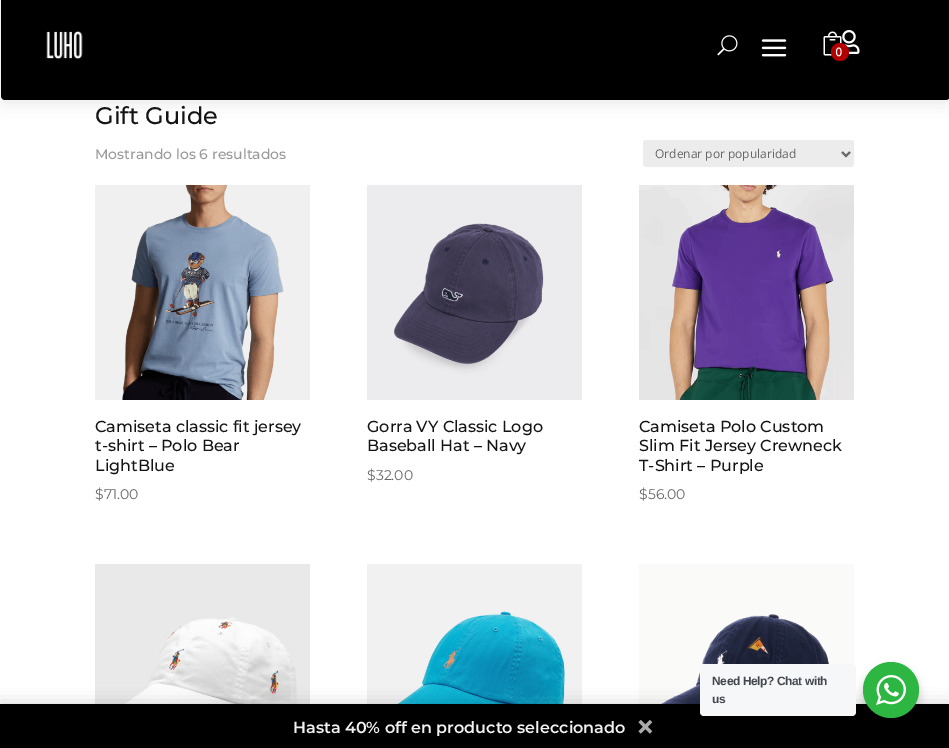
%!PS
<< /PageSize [949 748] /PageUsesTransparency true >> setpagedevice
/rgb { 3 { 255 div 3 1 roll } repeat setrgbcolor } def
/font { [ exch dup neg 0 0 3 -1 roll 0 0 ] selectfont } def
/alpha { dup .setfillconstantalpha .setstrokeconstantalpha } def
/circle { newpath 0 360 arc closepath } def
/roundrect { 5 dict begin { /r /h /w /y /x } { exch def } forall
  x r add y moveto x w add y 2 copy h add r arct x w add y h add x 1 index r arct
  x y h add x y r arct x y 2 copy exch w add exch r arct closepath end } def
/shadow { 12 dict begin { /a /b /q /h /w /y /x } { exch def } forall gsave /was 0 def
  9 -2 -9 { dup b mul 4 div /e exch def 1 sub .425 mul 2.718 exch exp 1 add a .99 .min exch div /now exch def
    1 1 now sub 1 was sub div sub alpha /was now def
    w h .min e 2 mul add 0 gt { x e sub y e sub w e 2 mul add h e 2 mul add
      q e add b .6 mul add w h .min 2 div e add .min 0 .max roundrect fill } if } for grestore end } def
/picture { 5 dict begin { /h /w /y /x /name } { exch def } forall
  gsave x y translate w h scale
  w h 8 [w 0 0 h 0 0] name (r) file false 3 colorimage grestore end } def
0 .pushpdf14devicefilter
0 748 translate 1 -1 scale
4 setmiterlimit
255 255 255 rgb
0 0 949 748 rectfill
0 0 0 rgb
1 2 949 100 4 9 0.1 shadow
1 0 moveto 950 0 lineto 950 96 lineto 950 98 948 100 946 100 curveto 5 100 lineto 3 100 1 98 1 96 curveto closepath fill
(img/1.rgb) 46 31 37 28 picture
(img/2.rgb) 717 35 21 21 picture
(img/3.rgb) 761 39 26 18 picture
(img/4.rgb) 823 31 19 25 picture
(img/6.rgb) 842 30 18 24 picture
178 0 0 rgb
840 52 9 circle fill
(img/5.rgb) 835 47 7 10 picture
236 236 236 rgb
643 140 211 27 3 roundrect fill
102 102 102 rgb
2 setlinewidth
842 152 moveto 846 156 lineto 850 152 lineto stroke
(img/7.rgb) 95 185 215 215 picture
(img/8.rgb) 367 185 215 215 picture
(img/9.rgb) 639 185 215 215 picture
(img/10.rgb) 95 564 215 140 picture
(img/11.rgb) 367 564 215 140 picture
(img/12.rgb) 639 564 215 140 picture
0 0 0 rgb
0 705 949 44 0 8 0.2 shadow
0 704 949 44 rectfill
861 666 60 60 30 4 0.14 shadow
245 247 249 rgb
700 664 156 52 4 roundrect fill
45 183 66 rgb
891 690 28 circle fill
(img/13.rgb) 876 675 30 30 picture
/Montserrat-Medium 24 font
20 20 20 rgb
95 124 moveto (Gift Guide) show
/Montserrat-Medium 14 font
153 153 153 rgb
95 159 moveto (Mostrando los 6 resultados) show
/OpenSans-Regular 12 font
102 102 102 rgb
655 158 moveto (Ordenar por popularidad) show
/Montserrat-Medium 16 font
20 20 20 rgb
[
  [(Camiseta classic fit jersey) 95 432]
  [(t-shirt – Polo Bear) 95 451]
  [(LightBlue) 95 471]
] { aload pop moveto show } forall
/Montserrat-Regular 14 font
102 102 102 rgb
95 499 moveto ($71.00) show
/Montserrat-Medium 16 font
20 20 20 rgb
367 432 moveto (Gorra VY Classic Logo) show
367 451 moveto (Baseball Hat – Navy) show
/Montserrat-Regular 14 font
102 102 102 rgb
367 480 moveto ($32.00) show
/Montserrat-Medium 16 font
20 20 20 rgb
[
  [(Camiseta Polo Custom) 639 432]
  [(Slim Fit Jersey Crewneck) 639 451]
  [(T-Shirt – Purple) 639 471]
] { aload pop moveto show } forall
/Montserrat-Regular 14 font
102 102 102 rgb
639 499 moveto ($56.00) show
/LiberationSans-Bold 12 font
67 71 78 rgb
712 685 moveto -0.4 0 (Need Help? Chat with) ashow
712 703 moveto -0.4 0 (us) ashow
/Montserrat-SemiBold 16 font
241 241 241 rgb
293 733 moveto (Hasta 40% off en producto seleccionado) show
/Montserrat-SemiBold 35 font
170 170 170 rgb
635 739 moveto (×) show
.poppdf14devicefilter showpage
